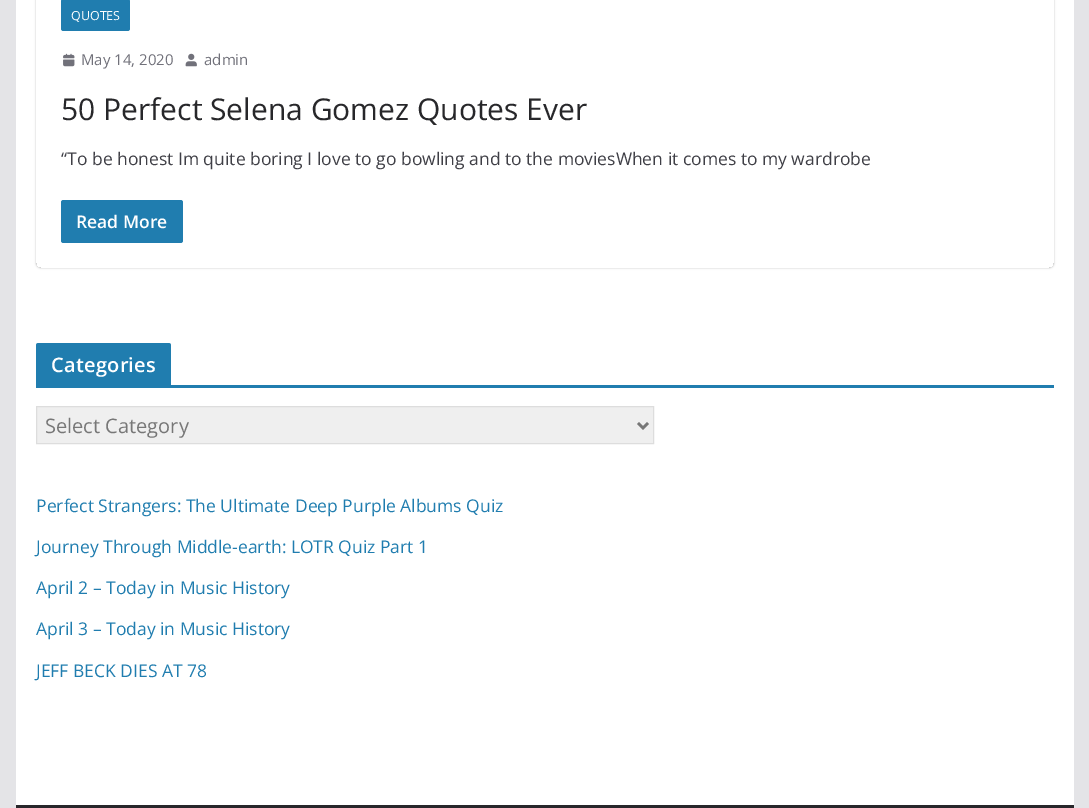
%!PS
<< /PageSize [1089 808] /PageUsesTransparency true >> setpagedevice
/rgb { 3 { 255 div 3 1 roll } repeat setrgbcolor } def
/font { [ exch dup neg 0 0 3 -1 roll 0 0 ] selectfont } def
/alpha { dup .setfillconstantalpha .setstrokeconstantalpha } def
/roundrect { 5 dict begin { /r /h /w /y /x } { exch def } forall
  x r add y moveto x w add y 2 copy h add r arct x w add y h add x 1 index r arct
  x y h add x y r arct x y 2 copy exch w add exch r arct closepath end } def
/shadow { 12 dict begin { /a /b /q /h /w /y /x } { exch def } forall gsave /was 0 def
  9 -2 -9 { dup b mul 4 div /e exch def 1 sub .425 mul 2.718 exch exp 1 add a .99 .min exch div /now exch def
    1 1 now sub 1 was sub div sub alpha /was now def
    w h .min e 2 mul add 0 gt { x e sub y e sub w e 2 mul add h e 2 mul add
      q e add b .6 mul add w h .min 2 div e add .min 0 .max roundrect fill } if } for grestore end } def
/picture { 5 dict begin { /h /w /y /x /name } { exch def } forall
  gsave x y translate w h scale
  w h 8 [w 0 0 h 0 0] name (r) file false 3 colorimage grestore end } def
0 .pushpdf14devicefilter
0 808 translate 1 -1 scale
4 setmiterlimit
228 228 231 rgb
0 0 1089 808 rectfill
255 255 255 rgb
16 0 1058 805 rectfill
gsave
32 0 moveto 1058 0 lineto 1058 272 lineto 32 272 lineto closepath 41 -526 moveto 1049 -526 lineto 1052 -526 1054 -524 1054 -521 curveto 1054 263 lineto 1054 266 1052 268 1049 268 curveto 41 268 lineto 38 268 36 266 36 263 curveto 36 -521 lineto 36 -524 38 -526 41 -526 curveto closepath eoclip newpath
0 0 0 rgb
36 -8 1018 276 5 1 0.24 shadow
grestore
32 125 175 rgb
61 -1 69 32 2.5 roundrect fill
(img/1.rgb) 63 53 12 14 picture
(img/2.rgb) 185 53 12 14 picture
61 200 122 43 2.5 roundrect fill
36 385 1018 3 rectfill
38.5 343 moveto 168.5 343 lineto 170 343 171 344 171 345.5 curveto 171 385 lineto 36 385 lineto 36 345.5 lineto 36 344 37 343 38.5 343 curveto closepath fill
239 239 239 rgb
36.5 406.5 moveto 653.5 406.5 lineto 653.5 443.5 lineto 36.5 443.5 lineto closepath gsave fill grestore
221 221 221 rgb
stroke
119 119 119 rgb
2.5 setlinewidth
638 423 moveto 643 428 lineto 648 423 lineto stroke
39 39 42 rgb
16 805 1058 3 rectfill
/OpenSans-Regular 12.5 font
255 255 255 rgb
71 20 moveto (QUOTES) show
/OpenSans-Regular 15 font
113 113 122 rgb
81 65 moveto (May 14, 2020) show
204 65 moveto (admin) show
/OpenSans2-Regular 30 font
39 39 42 rgb
61 120 moveto (50 Perfect Selena Gomez Quotes Ever) show
/OpenSans-Regular 17.5 font
63 63 70 rgb
61 165 moveto (“To be honest Im quite boring I love to go bowling and to the moviesWhen it comes to my wardrobe) show
/OpenSans-SemiBold 17.5 font
255 255 255 rgb
76 228 moveto (Read More) show
/OpenSans-SemiBold 20 font
51 372 moveto 0.25 0 (Categories) ashow
/OpenSans-Regular 20 font
119 119 119 rgb
45 433 moveto (Select Category) show
/OpenSans-Regular 17.5 font
32 125 175 rgb
[
  [(Perfect Strangers: The Ultimate Deep Purple Albums Quiz) 36 512]
  [(Journey Through Middle-earth: LOTR Quiz Part 1) 36 553]
  [(April 2 – Today in Music History) 36 594]
  [(April 3 – Today in Music History) 36 635]
  [(JEFF BECK DIES AT 78) 36 677]
] { aload pop moveto show } forall
.poppdf14devicefilter showpage
